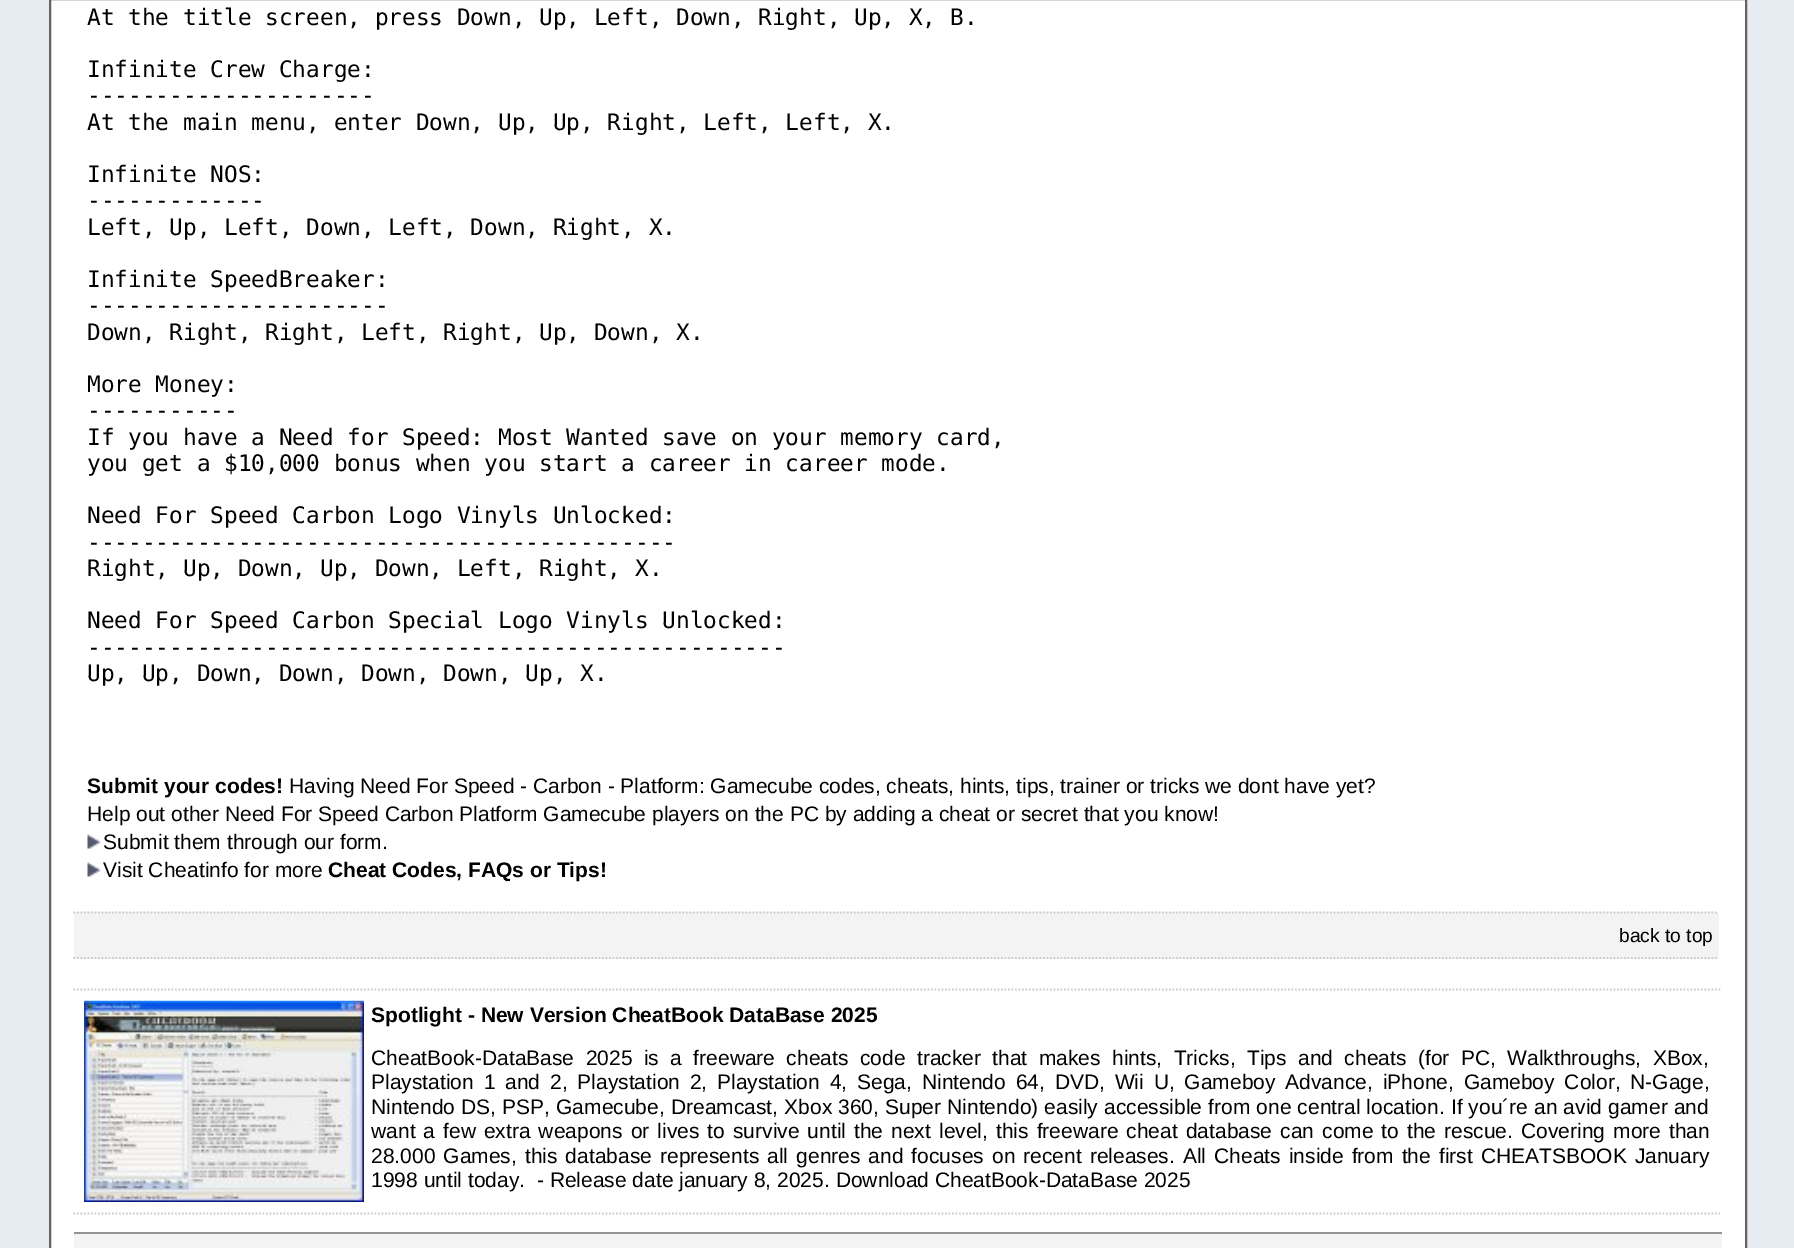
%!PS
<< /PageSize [1794 1248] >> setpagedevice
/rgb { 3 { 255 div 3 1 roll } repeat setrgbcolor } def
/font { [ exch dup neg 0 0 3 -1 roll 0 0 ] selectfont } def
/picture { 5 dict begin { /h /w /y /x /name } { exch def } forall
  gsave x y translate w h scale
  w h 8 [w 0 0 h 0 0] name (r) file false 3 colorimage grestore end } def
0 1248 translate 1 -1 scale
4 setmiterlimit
231 235 242 rgb
0 0 1794 1248 rectfill
255 255 255 rgb
50 -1 moveto 1746 -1 lineto 1746 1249 lineto 50 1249 lineto closepath gsave fill grestore
99 99 99 rgb
2 setlinewidth
stroke
(img/1.rgb) 87 834 14 15 picture
(img/1.rgb) 87 862 14 15 picture
243 243 243 rgb
74 912 1645 47 rectfill
204 204 204 rgb
1.8 setlinewidth
[1.75 1.75] 0 setdash
73.5 912.5 moveto 1718.5 912.5 lineto stroke
73.5 958 moveto 1718.5 958 lineto stroke
73.5 989.5 moveto 1722 989.5 lineto stroke
73.5 1213.5 moveto 1720 1213.5 lineto stroke
(img/2.rgb) 84 1000 280 202 picture
243 243 243 rgb
74 1234 1648 14 rectfill
147 147 147 rgb
74 1232 1648 2 rectfill
/DejaVuSansMono-Regular 22.75 font
0 0 0 rgb
[
  [(At the title screen, press Down, Up, Left, Down, Right, Up, X, B.) 87 25]
  [(Infinite Crew Charge:) 87 77]
  [(---------------------) 87 103]
  [(At the main menu, enter Down, Up, Up, Right, Left, Left, X.) 87 130]
  [(Infinite NOS:) 87 182]
  [(-------------) 87 208]
  [(Left, Up, Left, Down, Left, Down, Right, X.) 87 235]
  [(Infinite SpeedBreaker:) 87 287]
  [(----------------------) 87 313]
  [(Down, Right, Right, Left, Right, Up, Down, X.) 87 340]
  [(More Money:) 87 392]
  [(-----------) 87 418]
  [(If you have a Need for Speed: Most Wanted save on your memory card,) 87 445]
  [(you get a $10,000 bonus when you start a career in career mode.) 87 471]
  [(Need For Speed Carbon Logo Vinyls Unlocked:) 87 523]
  [(-------------------------------------------) 87 550]
  [(Right, Up, Down, Up, Down, Left, Right, X.) 87 576]
  [(Need For Speed Carbon Special Logo Vinyls Unlocked:) 87 628]
  [(---------------------------------------------------) 87 655]
  [(Up, Up, Down, Down, Down, Down, Up, X.) 87 681]
] { aload pop moveto show } forall
/LiberationSans-Bold 21 font
87 793 moveto (Submit your codes!) show
/LiberationSans-Regular 21 font
[
  [(Having Need For Speed - Carbon - Platform: Gamecube codes, cheats, hints, tips, trainer or tricks we dont have yet?) 289 793]
  [(Help out other Need For Speed Carbon Platform Gamecube players on the PC by adding a cheat or secret that you know!) 87 821]
  [(Submit them through our form.) 103 849]
  [(Visit Cheatinfo for more) 103 877]
] { aload pop moveto show } forall
/LiberationSans-Bold 21 font
328 877 moveto (Cheat Codes, FAQs or Tips!) show
/LiberationSans-Regular 19.25 font
1619 942 moveto (back to top) show
/LiberationSans-Bold 21 font
371 1022 moveto (Spotlight - New Version CheatBook DataBase 2025) show
/LiberationSans-Regular 21 font
371 1065 moveto 5.6 0 32 (CheatBook-DataBase 2025 is a freeware cheats code tracker that makes hints, Tricks, Tips and cheats \(for PC, Walkthroughs, XBox,) widthshow
371 1089 moveto 4 0 32 (Playstation 1 and 2, Playstation 2, Playstation 4, Sega, Nintendo 64, DVD, Wii U, Gameboy Advance, iPhone, Gameboy Color, N-Gage,) widthshow
371 1114 moveto 0.25 0 32 (Nintendo DS, PSP, Gamecube, Dreamcast, Xbox 360, Super Nintendo\) easily accessible from one central location. If you´re an avid gamer and) widthshow
371 1138 moveto 2.2 0 32 (want a few extra weapons or lives to survive until the next level, this freeware cheat database can come to the rescue. Covering more than) widthshow
371 1163 moveto 2.2 0 32 (28.000 Games, this database represents all genres and focuses on recent releases. All Cheats inside from the first CHEATSBOOK January) widthshow
371 1187 moveto (1998 until today.  - Release date january 8, 2025. Download CheatBook-DataBase 2025) show
showpage
